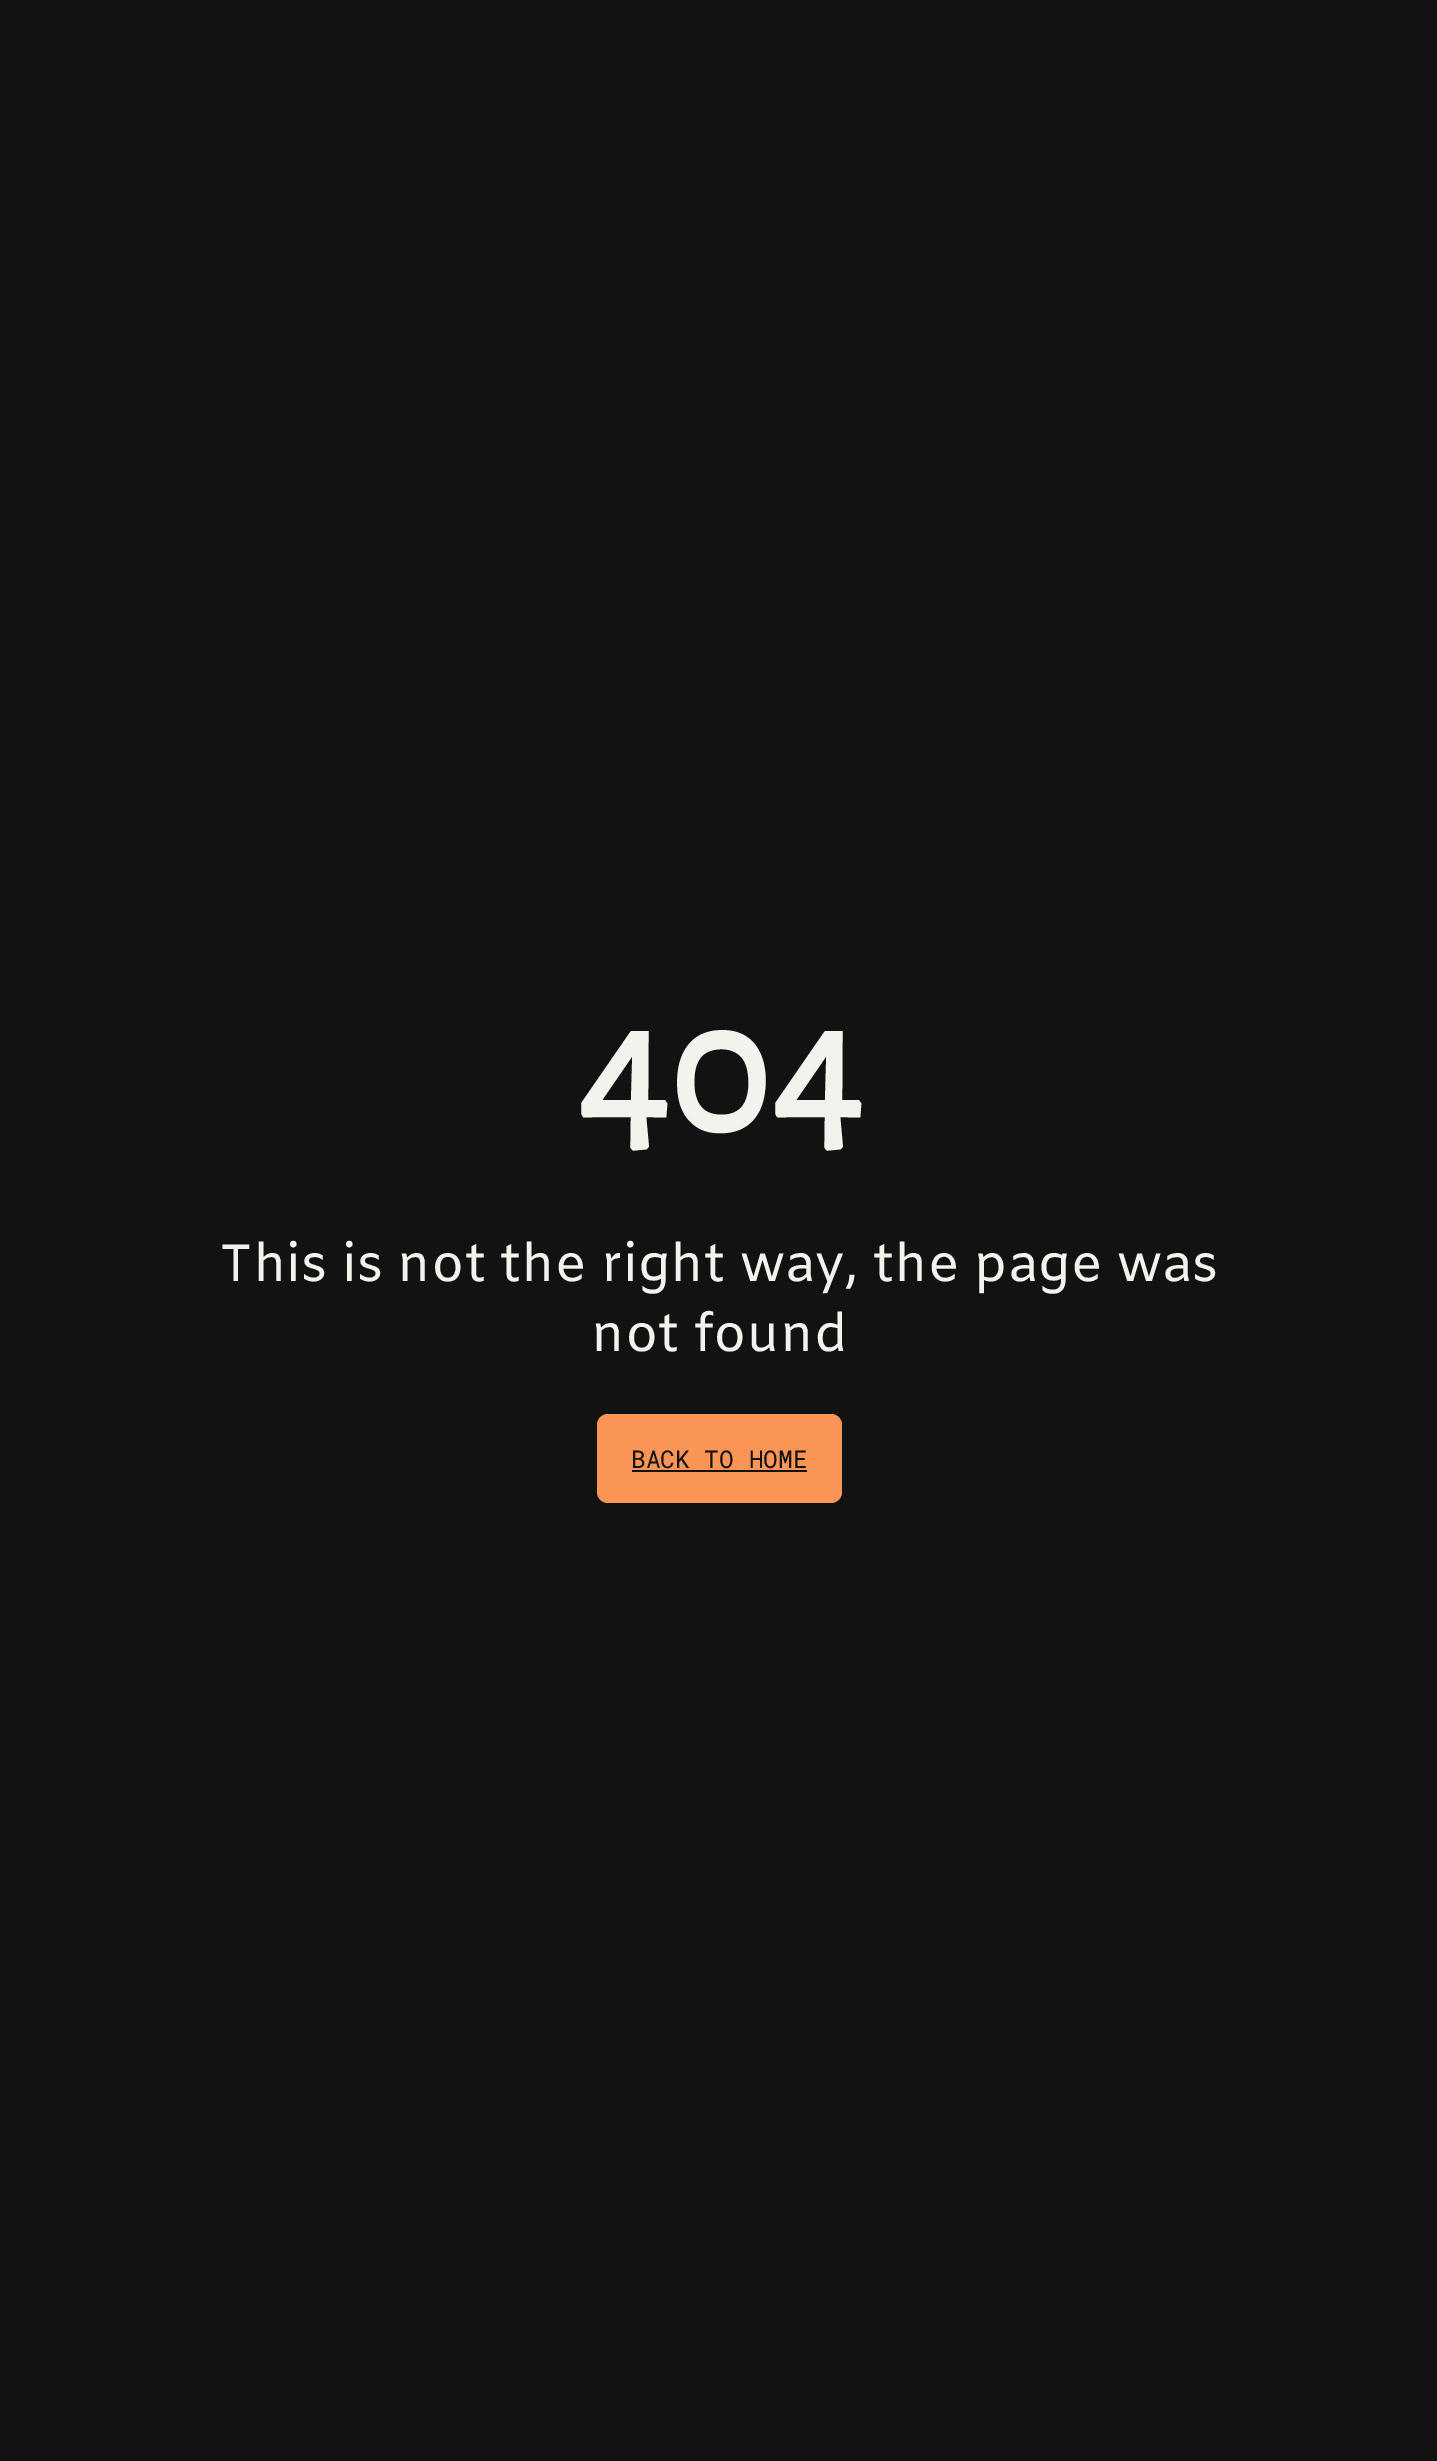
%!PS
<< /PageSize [1437 2461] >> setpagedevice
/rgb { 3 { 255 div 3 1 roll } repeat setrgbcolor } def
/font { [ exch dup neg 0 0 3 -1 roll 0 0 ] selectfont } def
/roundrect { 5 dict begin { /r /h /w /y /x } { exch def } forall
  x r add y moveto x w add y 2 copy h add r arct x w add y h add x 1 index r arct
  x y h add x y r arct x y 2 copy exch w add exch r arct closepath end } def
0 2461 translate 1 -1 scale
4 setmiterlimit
18 18 18 rgb
0 0 1437 2461 rectfill
250 149 86 rgb
597 1414 245 89 11 roundrect fill
18 18 18 rgb
632 1470 175 2 rectfill
/AlegreyaSansSC-Bold 192 font
244 242 237 rgb
576 1132 moveto (404) show
/Amiko-Regular 52.5 font
219 1281 moveto (This is not the right way, the page was) show
591 1351 moveto (not found) show
/RobotoMono-Regular 24.5 font
18 18 18 rgb
631 1468 moveto (BACK TO HOME) show
showpage
